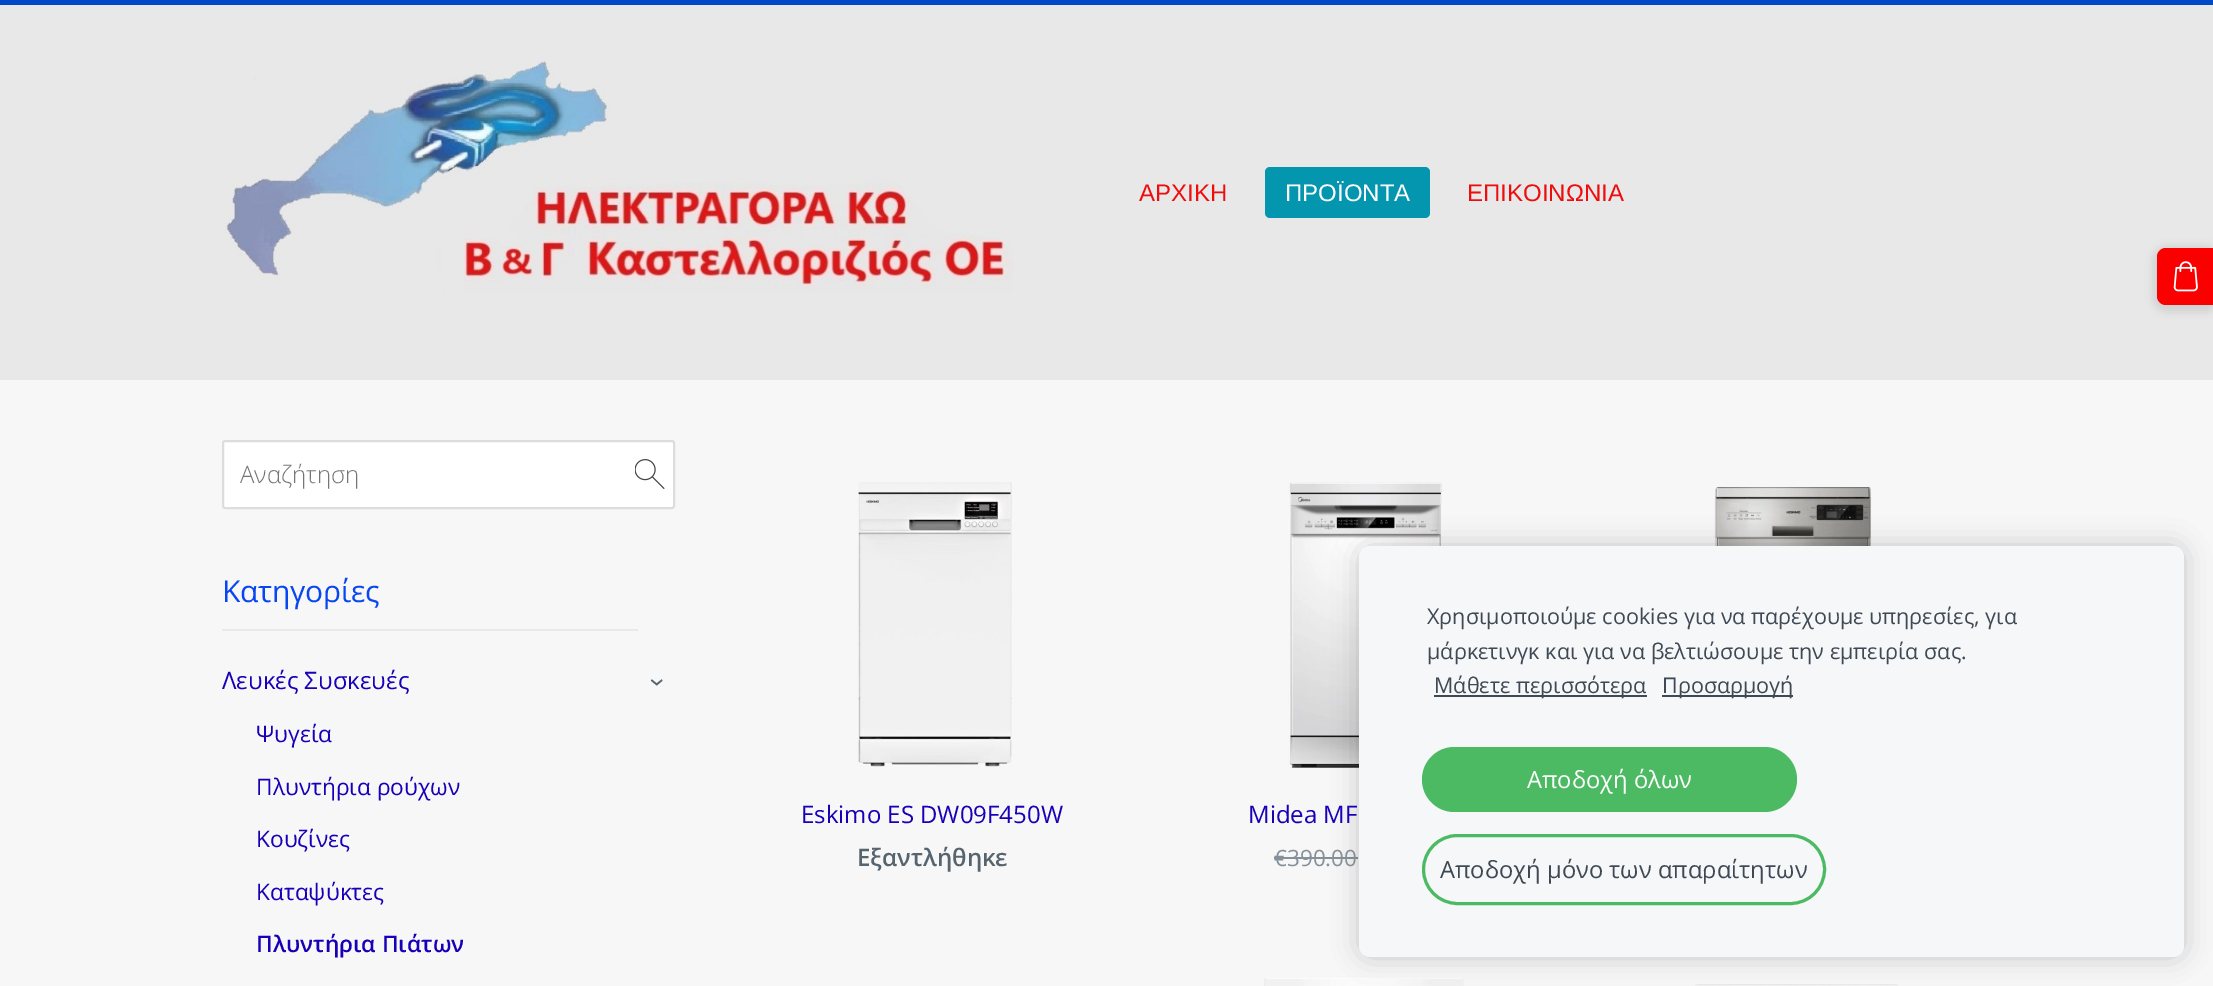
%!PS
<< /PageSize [2213 986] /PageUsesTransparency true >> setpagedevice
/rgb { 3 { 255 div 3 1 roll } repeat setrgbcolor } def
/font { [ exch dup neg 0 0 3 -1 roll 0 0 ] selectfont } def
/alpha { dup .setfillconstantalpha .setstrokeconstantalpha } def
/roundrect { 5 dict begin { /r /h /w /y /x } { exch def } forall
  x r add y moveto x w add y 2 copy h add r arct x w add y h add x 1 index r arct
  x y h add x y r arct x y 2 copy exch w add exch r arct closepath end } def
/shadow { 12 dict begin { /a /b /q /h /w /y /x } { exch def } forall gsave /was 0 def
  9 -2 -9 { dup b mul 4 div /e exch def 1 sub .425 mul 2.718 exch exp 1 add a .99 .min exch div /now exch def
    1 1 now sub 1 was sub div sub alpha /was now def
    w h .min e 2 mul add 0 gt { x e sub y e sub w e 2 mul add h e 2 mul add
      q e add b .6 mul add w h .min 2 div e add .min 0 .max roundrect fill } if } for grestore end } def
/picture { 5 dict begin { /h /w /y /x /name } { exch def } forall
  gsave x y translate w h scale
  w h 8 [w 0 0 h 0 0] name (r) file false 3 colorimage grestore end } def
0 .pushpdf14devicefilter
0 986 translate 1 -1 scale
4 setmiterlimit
247 247 247 rgb
0 0 2213 986 rectfill
232 232 232 rgb
0 5 2213 375 rectfill
0 73 199 rgb
0 0 2213 5 rectfill
(img/1.rgb) 222 59 791 234 picture
5 150 175 rgb
1265 167 165 51 5 roundrect fill
0 0 0 rgb
2153 246 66 66 14 4 0.1 shadow
251 0 0 rgb
2166 248 moveto 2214 248 lineto 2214 305 lineto 2166 305 lineto 2161 305 2157 301 2157 296 curveto 2157 257 lineto 2157 252 2161 248 2166 248 curveto closepath fill
(img/2.rgb) 2173 261 25 31 picture
255 255 255 rgb
223 441 451 67 2 roundrect gsave fill grestore
221 221 221 rgb
2 setlinewidth
stroke
(img/3.rgb) 635 459 30 30 picture
231 234 236 rgb
222 629 416 2 rectfill
(img/4.rgb) 1714 487 158 59 picture
(img/5.rgb) 857 482 155 285 picture
(img/6.rgb) 1288 482 154 286 picture
134 144 152 rgb
1274 857 84 2 rectfill
(img/7.rgb) 1264 978 200 8 picture
(img/8.rgb) 1695 984 203 2 picture
0 0 0 rgb
1359 546 825 411 11 13 0.2 shadow
246 247 249 rgb
1359 546 825 411 11 roundrect fill
63 73 84 rgb
1434 695 213 2 rectfill
1662 695 131 2 rectfill
76 185 99 rgb
1422 747 375 65 32.5 roundrect fill
3 setlinewidth
1423.5 835.5 401 68 34 roundrect stroke
/LiberationSans-Regular 24 font
239 12 12 rgb
1139 201 moveto (ΑΡΧΙΚΗ) show
255 255 255 rgb
1285 201 moveto (ΠΡΟΪΟΝΤΑ) show
239 12 12 rgb
1467 201 moveto (ΕΠΙΚΟΙΝΩΝΙΑ) show
/OpenSans-Light 24 font
117 117 117 rgb
240 483 moveto (Αναζήτηση) show
/OpenSans-Regular 30 font
7 70 240 rgb
222 602 moveto -0.25 0 (Κατηγορίες) ashow
/OpenSans-Regular 24 font
24 0 184 rgb
222 689 moveto (Λευκές Συσκευές) show
/OpenSans-Regular 29 font
86 100 111 rgb
gsave 649 678 translate 90 rotate 0 0 moveto (›) show grestore
/OpenSans-Regular 22.75 font
24 0 184 rgb
[
  [(Ψυγεία) 256 742]
  [(Πλυντήρια ρούχων) 256 795]
  [(Κουζίνες) 256 847]
  [(Καταψύκτες) 256 900]
] { aload pop moveto show } forall
/OpenSans-SemiBold 22.75 font
256 952 moveto (Πλυντήρια Πιάτων) show
/OpenSans-Regular 24 font
801 823 moveto (Eskimo ES DW09F450W) show
/OpenSans-SemiBold 24 font
86 100 111 rgb
857 866 moveto (Εξαντλήθηκε) show
/OpenSans-Regular 24 font
24 0 184 rgb
1248 823 moveto (Midea MF) show
/OpenSans-Regular 22.5 font
134 144 152 rgb
1274 866 moveto (€390.00) show
/OpenSans-Regular 21.6 font
63 73 84 rgb
[
  [(Χρησιμοποιούμε cookies για να παρέχουμε υπηρεσίες, για) 1427 624]
  [(μάρκετινγκ και για να βελτιώσουμε την εμπειρία σας.) 1427 659]
  [(Μάθετε περισσότερα) 1434 693]
  [(Προσαρμογή) 1662 693]
] { aload pop moveto show } forall
/OpenSans-Regular 23.75 font
255 255 255 rgb
1527 788 moveto (Αποδοχή όλων) show
63 73 84 rgb
1440 878 moveto (Αποδοχή μόνο των απαραίτητων) show
.poppdf14devicefilter showpage
